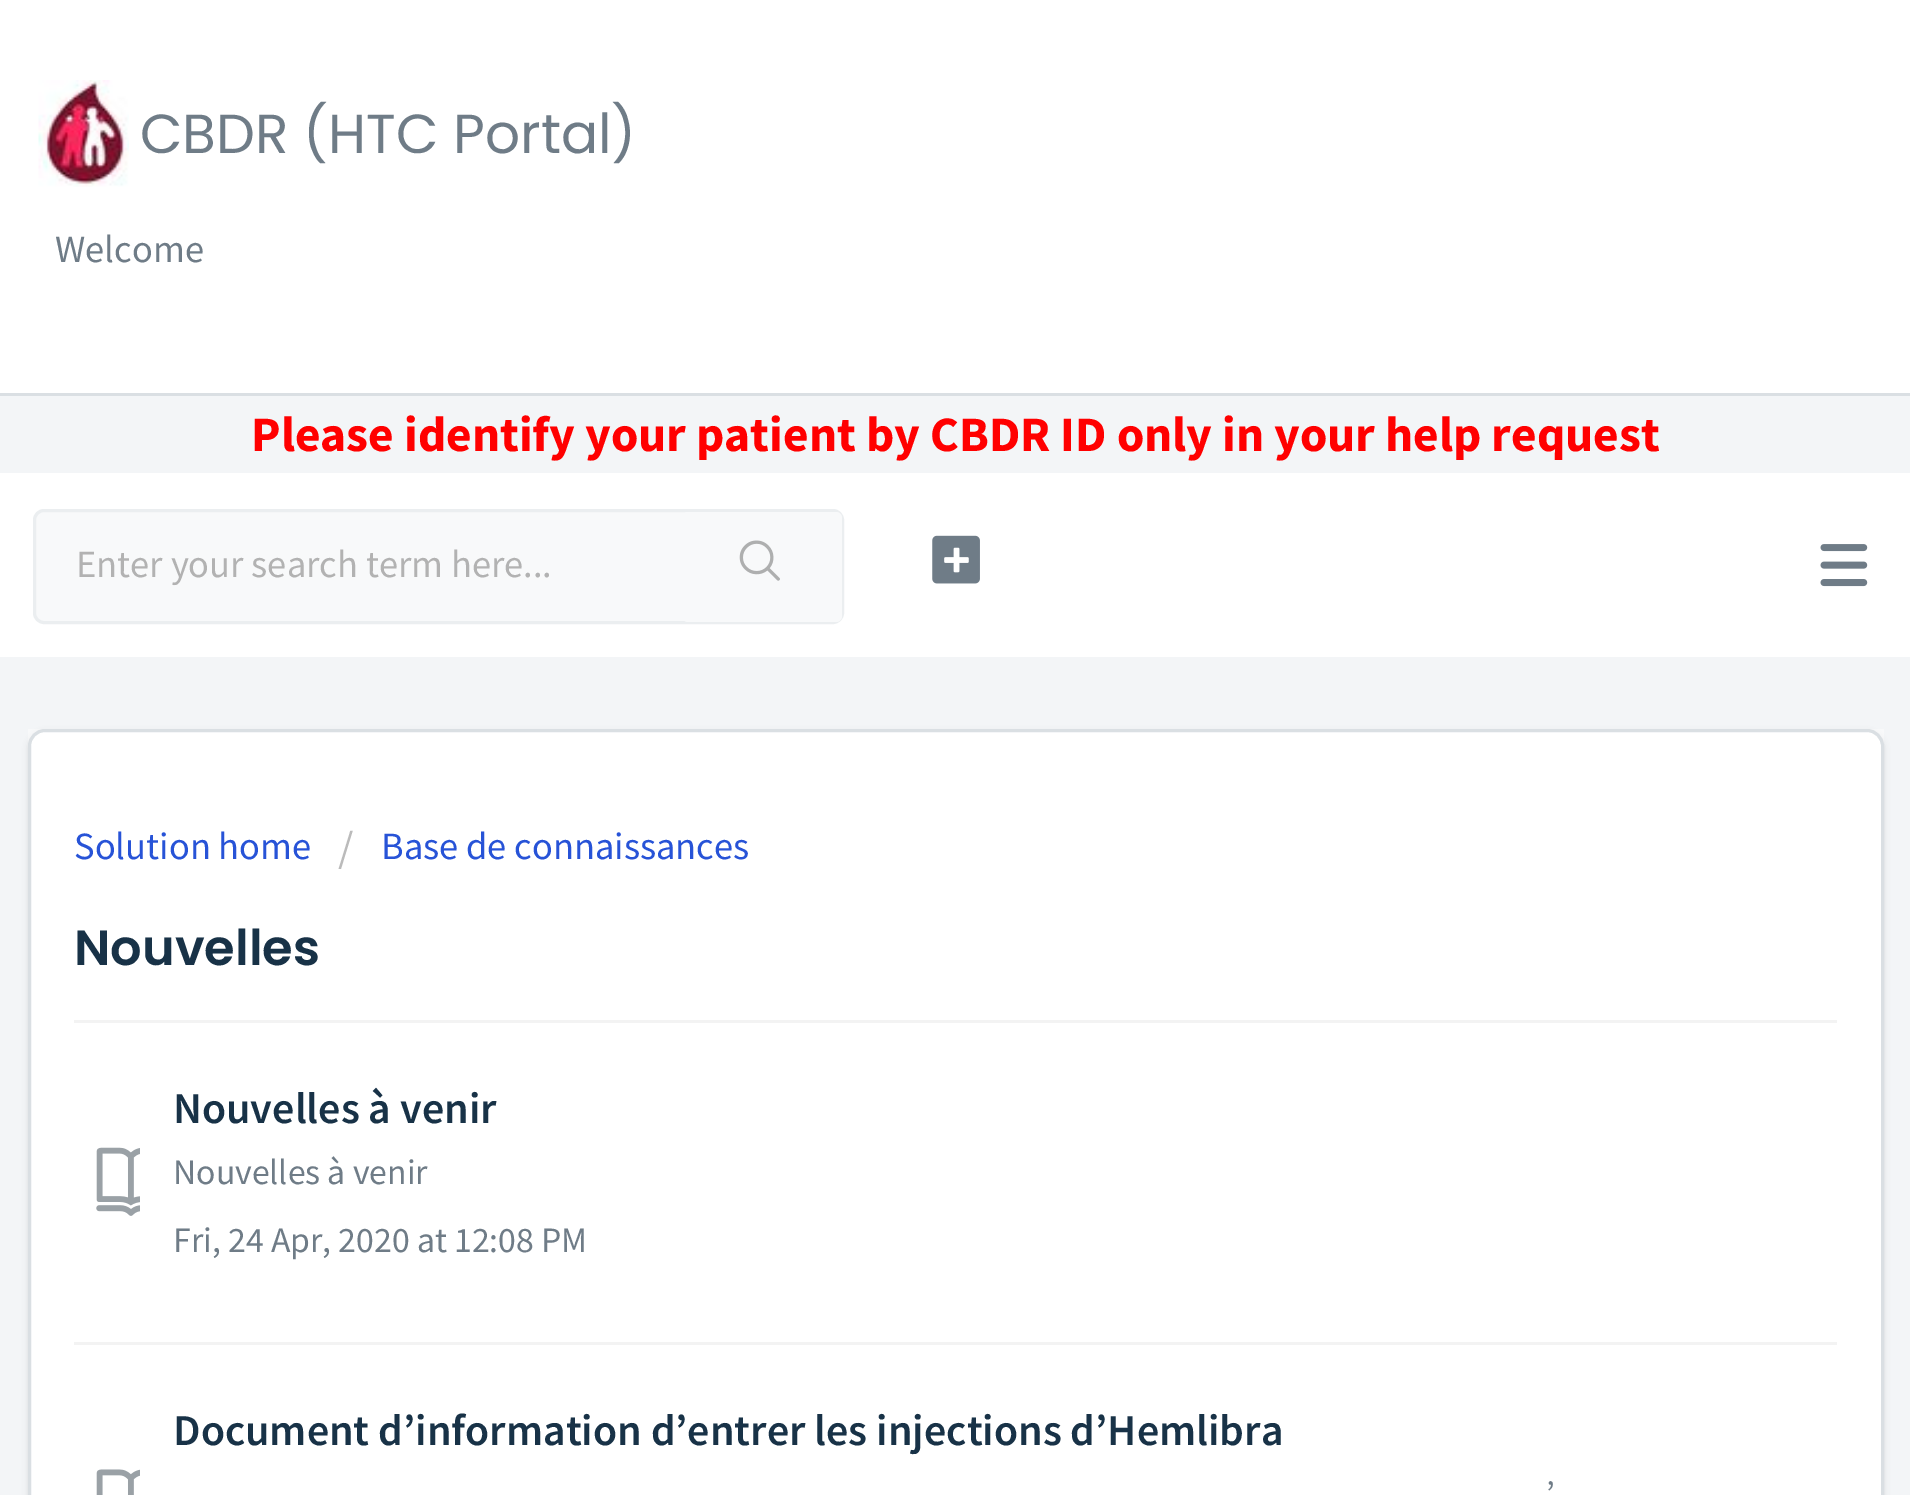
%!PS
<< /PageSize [1910 1495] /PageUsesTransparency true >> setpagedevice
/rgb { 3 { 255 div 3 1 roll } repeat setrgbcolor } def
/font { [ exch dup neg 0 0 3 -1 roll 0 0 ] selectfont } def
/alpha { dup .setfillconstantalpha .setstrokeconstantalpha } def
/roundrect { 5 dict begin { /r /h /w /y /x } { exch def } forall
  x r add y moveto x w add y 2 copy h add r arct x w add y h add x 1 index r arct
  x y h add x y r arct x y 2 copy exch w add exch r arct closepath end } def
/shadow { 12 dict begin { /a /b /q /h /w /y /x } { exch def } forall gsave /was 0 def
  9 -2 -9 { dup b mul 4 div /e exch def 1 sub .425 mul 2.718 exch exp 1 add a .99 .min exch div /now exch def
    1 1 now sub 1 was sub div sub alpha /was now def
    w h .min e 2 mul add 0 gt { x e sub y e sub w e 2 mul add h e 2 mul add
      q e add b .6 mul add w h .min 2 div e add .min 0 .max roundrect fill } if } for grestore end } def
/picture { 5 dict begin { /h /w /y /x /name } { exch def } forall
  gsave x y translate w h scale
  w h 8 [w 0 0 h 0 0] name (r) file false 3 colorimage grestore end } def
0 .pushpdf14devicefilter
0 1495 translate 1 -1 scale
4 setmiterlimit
243 245 247 rgb
0 0 1910 1495 rectfill
255 255 255 rgb
0 0 1910 393 rectfill
218 223 227 rgb
0 393 1910 3 rectfill
(img/1.rgb) 38 80 91 107 picture
255 255 255 rgb
0 473 1910 184 rectfill
(img/2.rgb) 1820 544 48 43 picture
248 249 250 rgb
34.5 510.5 808 112 9.5 roundrect gsave fill grestore
235 238 240 rgb
3 setlinewidth
stroke
248 249 250 rgb
682 512 160 110 6 roundrect fill
(img/3.rgb) 739 540 41 41 picture
(img/4.rgb) 932 535 48 49 picture
28 729 1856 17 rectfill
63 63 68 rgb
28 732 1856 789 17 3 0.15 shadow
255 255 255 rgb
29.5 730.5 1853 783 15.5 roundrect gsave fill grestore
218 223 227 rgb
stroke
243 243 243 rgb
74 1020 1763 3 rectfill
(img/5.rgb) 96 1147 44 69 picture
74 1342 1763 3 rectfill
(img/6.rgb) 96 1469 44 26 picture
/Poppins-Regular 55 font
111 124 135 rgb
140 153 moveto (CBDR \(HTC Portal\)) show
/SourceSansPro-Regular 38.5 font
55 262 moveto (Welcome) show
/SourceSansPro-Bold 49.5 font
255 0 0 rgb
251 451 moveto (Please identify your patient by CBDR ID only in your help request) show
/SourceSansPro-Regular 38.5 font
178 178 178 rgb
76 577 moveto (Enter your search term here...) show
39 83 215 rgb
74 859 moveto (Solution home) show
/SourceSansPro-Regular 44 font
187 187 187 rgb
338 862 moveto (/) show
/SourceSansPro-Regular 38.5 font
39 83 215 rgb
381 859 moveto (Base de connaissances) show
/Poppins-SemiBold 49.5 font
24 50 71 rgb
74 965 moveto (Nouvelles) show
/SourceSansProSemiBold-SemiBold 44 font
173 1123 moveto (Nouvelles à venir) show
/SourceSansPro-Regular 35.75 font
111 124 135 rgb
173 1184 moveto (Nouvelles à venir) show
173 1252 moveto (Fri, 24 Apr, 2020 at 12:08 PM) show
/SourceSansProSemiBold-SemiBold 44 font
24 50 71 rgb
173 1445 moveto (Document d’information d’entrer les injections d’Hemlibra) show
/SourceSansPro-Regular 35.75 font
111 124 135 rgb
1546 1506 moveto (’) show
.poppdf14devicefilter showpage
